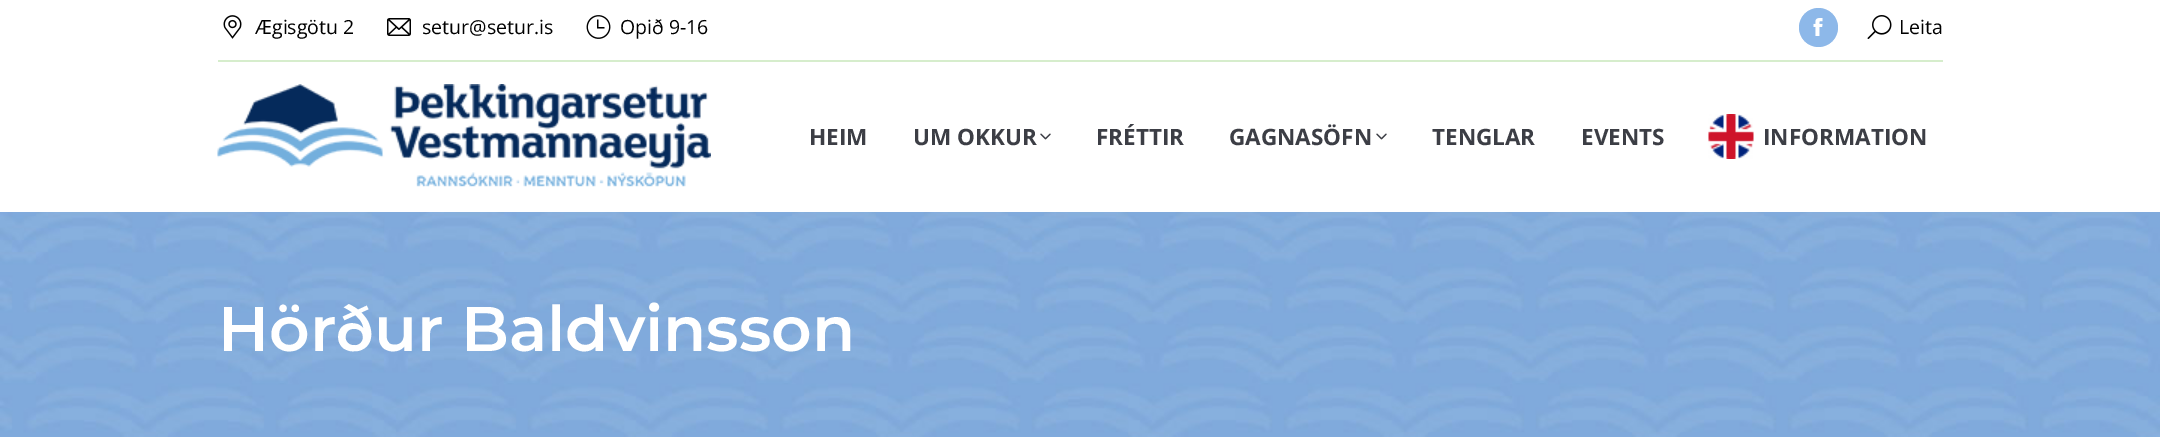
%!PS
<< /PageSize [2160 442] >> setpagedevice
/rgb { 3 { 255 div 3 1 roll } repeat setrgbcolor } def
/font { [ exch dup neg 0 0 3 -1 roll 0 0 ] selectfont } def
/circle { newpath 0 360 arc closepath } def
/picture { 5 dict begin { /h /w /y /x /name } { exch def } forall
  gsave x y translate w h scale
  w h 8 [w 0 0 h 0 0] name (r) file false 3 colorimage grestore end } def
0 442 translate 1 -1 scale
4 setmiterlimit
255 255 255 rgb
0 0 2160 442 rectfill
(img/1.rgb) 223 15 19 24 picture
(img/2.rgb) 387 18 24 18 picture
(img/3.rgb) 586 15 25 24 picture
141 184 233 rgb
1818.5 27.5 19.5 circle fill
(img/4.rgb) 1813 18 10 18 picture
(img/5.rgb) 1867 15 25 24 picture
214 237 204 rgb
218 60 1725 2 rectfill
(img/6.rgb) 217 84 494 103 picture
(img/7.rgb) 1040 133 11 7 picture
(img/7.rgb) 1376 133 11 7 picture
(img/8.rgb) 1708 114 46 45 picture
(img/9.rgb) 0 212 2160 225 picture
/OpenSans-Regular 19.5 font
0 0 0 rgb
[
  [(Ægisgötu 2) 255 34]
  [(setur@setur.is) 422 34]
  [(Opið 9-16) 620 34]
  [(Leita) 1899 34]
] { aload pop moveto show } forall
/OpenSans-Bold 22.5 font
60 62 69 rgb
[
  [(HEIM) 809 145]
  [(UM OKKUR) 913 145]
  [(FRÉTTIR) 1096 145]
  [(GAGNASÖFN) 1229 145]
  [(TENGLAR) 1432 145]
  [(EVENTS) 1581 145]
  [(INFORMATION) 1763 145]
] { aload pop moveto show } forall
/Montserrat-SemiBold 63 font
255 255 255 rgb
218 351 moveto (Hörður Baldvinsson) show
showpage
